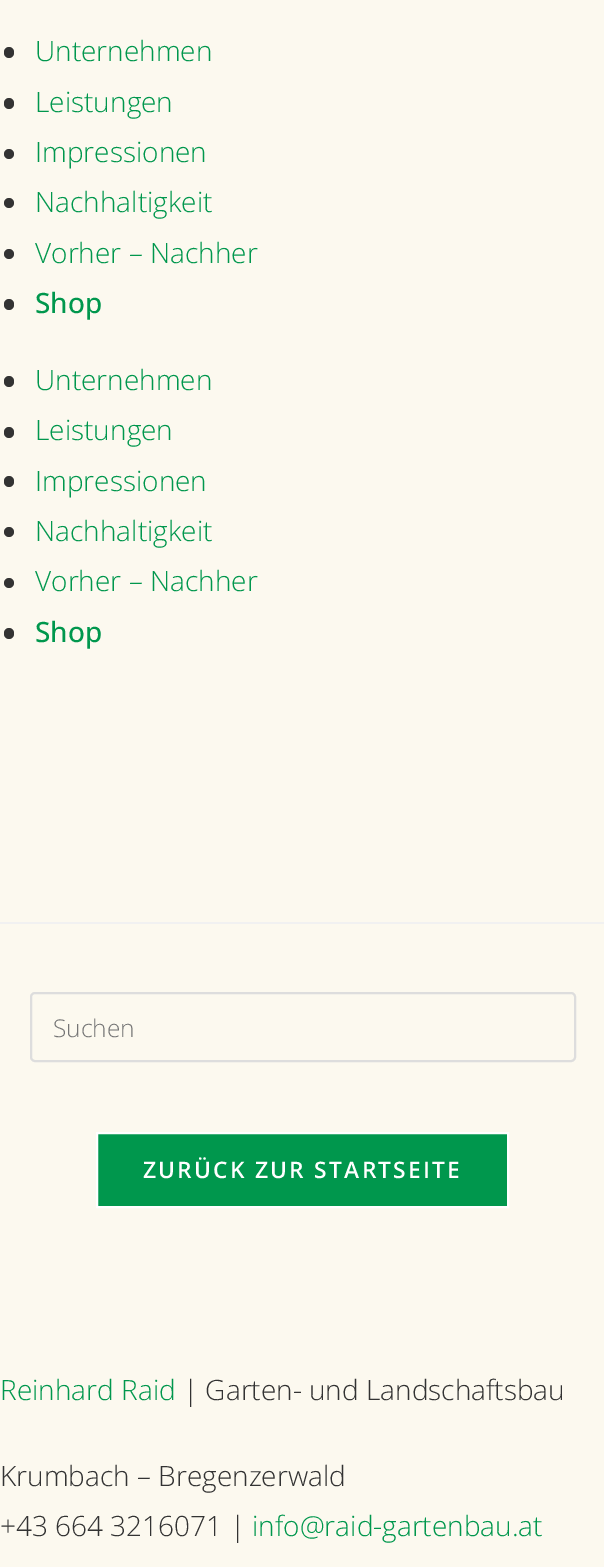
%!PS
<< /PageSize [604 1567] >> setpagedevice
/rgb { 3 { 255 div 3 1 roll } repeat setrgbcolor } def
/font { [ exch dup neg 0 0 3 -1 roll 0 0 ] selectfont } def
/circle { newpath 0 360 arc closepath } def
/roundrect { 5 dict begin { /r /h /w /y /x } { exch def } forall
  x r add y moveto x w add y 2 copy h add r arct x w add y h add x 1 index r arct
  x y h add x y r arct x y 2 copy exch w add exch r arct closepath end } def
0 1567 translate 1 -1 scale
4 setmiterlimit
252 249 239 rgb
0 0 604 1567 rectfill
241 241 241 rgb
0 922 604 2 rectfill
51 51 51 rgb
4 47 10 11 5 roundrect fill
4 98 10 11 5 roundrect fill
9 154 5 circle fill
9 203 5 circle fill
9 254 5 circle fill
4 299 10 11 5 roundrect fill
4 376 10 11 5 roundrect fill
4 427 10 11 5 roundrect fill
4 476 10 11 5 roundrect fill
9 532 5 circle fill
9 583 5 circle fill
4 628 10 11 5 roundrect fill
221 221 221 rgb
2 setlinewidth
31 993 544 68 4 roundrect stroke
0 151 77 rgb
97 1133 moveto 508 1133 lineto 508 1207 lineto 97 1207 lineto closepath gsave fill grestore
255 255 255 rgb
stroke
/OpenSans-Light 28 font
0 151 77 rgb
[
  [(Unternehmen) 35 61]
  [(Leistungen) 35 112]
  [(Impressionen) 35 162]
  [(Nachhaltigkeit) 35 212]
  [(Vorher – Nachher) 35 263]
] { aload pop moveto show } forall
/OpenSans-Medium 28 font
35 313 moveto (Shop) show
/OpenSans-Light 28 font
[
  [(Unternehmen) 35 390]
  [(Leistungen) 35 440]
  [(Impressionen) 35 491]
  [(Nachhaltigkeit) 35 541]
  [(Vorher – Nachher) 35 591]
] { aload pop moveto show } forall
/OpenSans-Medium 28 font
35 642 moveto (Shop) show
/OpenSans-Light 24.5 font
117 117 117 rgb
53 1037 moveto (Suchen) show
/OpenSans-SemiBold 22.75 font
255 255 255 rgb
143 1178 moveto 2.25 0 (ZURÜCK ZUR STARTSEITE) ashow
/OpenSans-Light 28 font
0 151 77 rgb
0 1400 moveto (Reinhard Raid) show
51 51 51 rgb
[
  [(| Garten- und Landschaftsbau) 183 1400]
  [(Krumbach – Bregenzerwald) 0 1486]
  [(+43 664 3216071 |) 0 1536]
] { aload pop moveto show } forall
0 151 77 rgb
252 1536 moveto (info@raid-gartenbau.at) show
showpage
